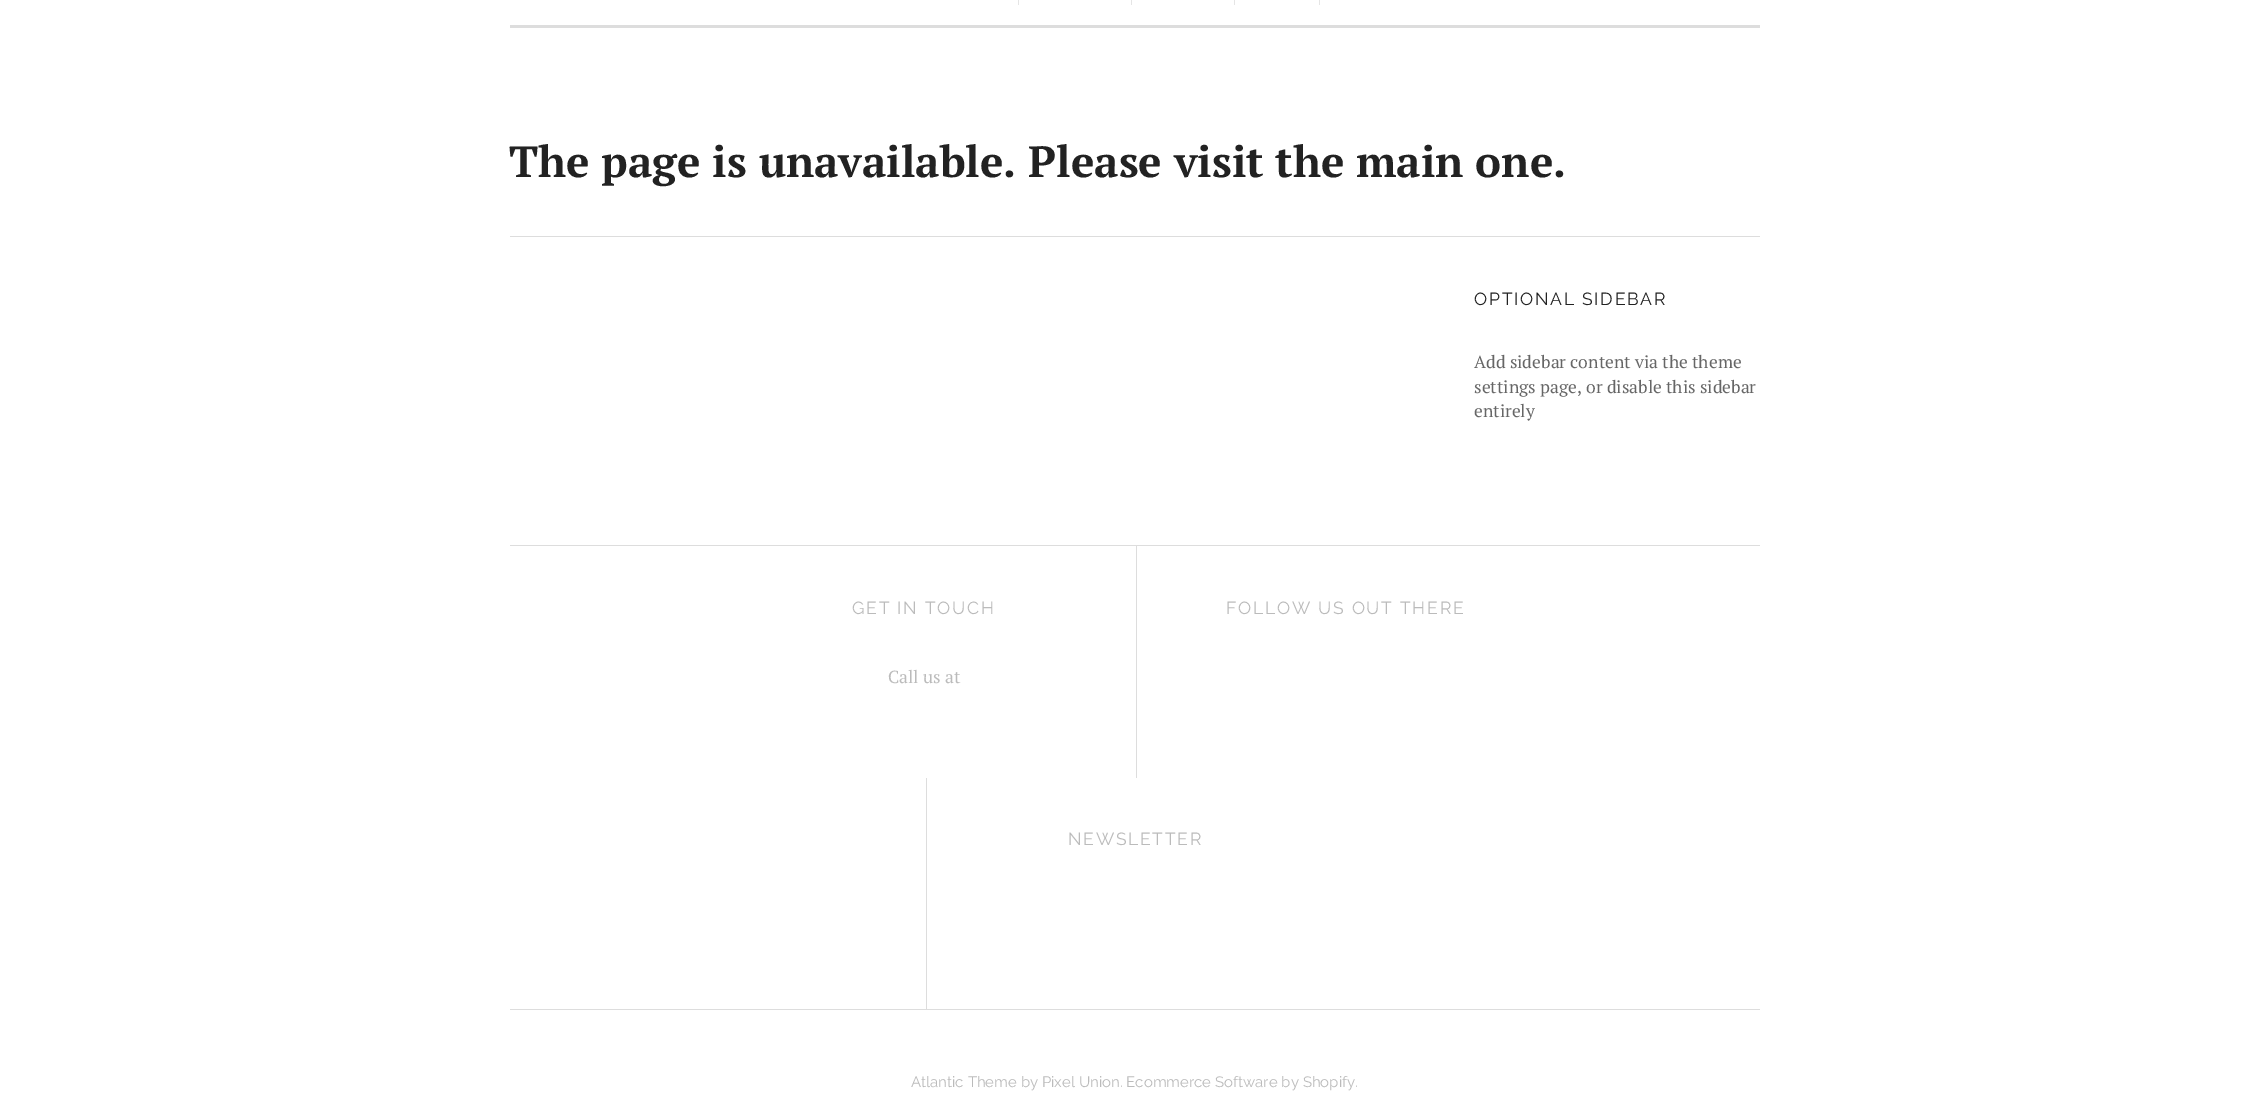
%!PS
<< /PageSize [2268 1115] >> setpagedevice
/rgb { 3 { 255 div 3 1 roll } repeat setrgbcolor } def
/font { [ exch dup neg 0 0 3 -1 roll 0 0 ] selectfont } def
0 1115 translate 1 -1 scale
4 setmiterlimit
255 255 255 rgb
0 0 2268 1115 rectfill
[
  [510 25 1250 3 221 221 221]
  [1018 0 1 5 229 229 229]
  [1131 0 1 5 229 229 229]
  [1234 0 1 5 229 229 229]
  [1319 0 1 5 229 229 229]
  [510 236 1250 1 221 221 221]
  [510 545 1250 1 221 221 221]
  [510 1009 1250 1 221 221 221]
  [1136 546 1 232 221 221 221]
  [926 778 1 231 221 221 221]
] { aload pop rgb rectfill } forall
/PTSerif-Bold 43.75 font
34 34 34 rgb
509 177 moveto (The page is unavailable. Please visit the main one.) show
/Raleway-Regular 17.5 font
1474 305 moveto 1.75 0 (OPTIONAL SIDEBAR) ashow
/PTSerif-Regular 17.5 font
102 102 102 rgb
[
  [(Add sidebar content via the theme) 1474 368]
  [(settings page, or disable this sidebar) 1474 393]
  [(entirely) 1474 417]
] { aload pop moveto show } forall
/Raleway-Regular 17.5 font
187 187 187 rgb
852 614 moveto 1.75 0 (GET IN TOUCH) ashow
/PTSerif-Regular 17.5 font
888 683 moveto (Call us at) show
/Raleway-Regular 17.5 font
1226 614 moveto 1.75 0 (FOLLOW US OUT THERE) ashow
1068 845 moveto 1.75 0 (NEWSLETTER) ashow
/Raleway-Regular 15 font
911 1087 moveto (Atlantic Theme by Pixel Union. Ecommerce Software by Shopify.) show
showpage
